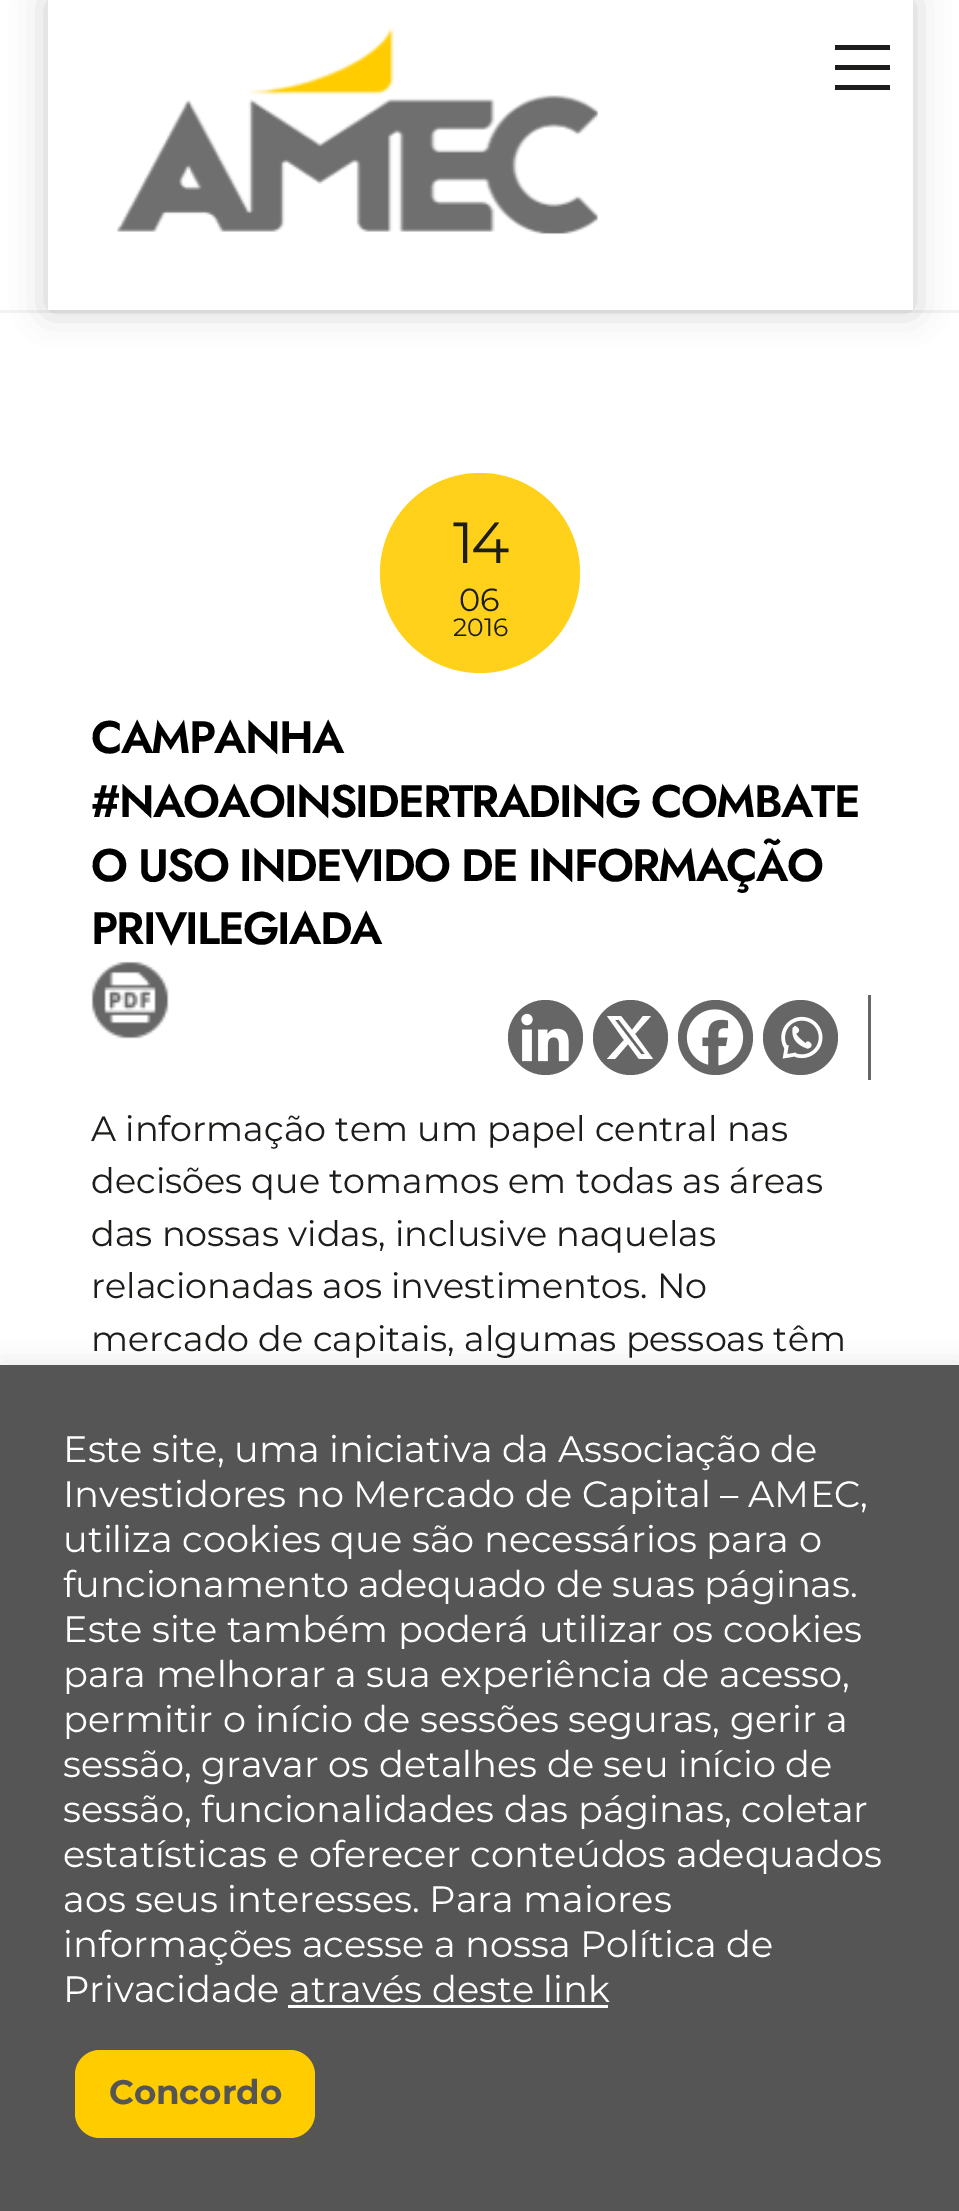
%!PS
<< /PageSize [959 2211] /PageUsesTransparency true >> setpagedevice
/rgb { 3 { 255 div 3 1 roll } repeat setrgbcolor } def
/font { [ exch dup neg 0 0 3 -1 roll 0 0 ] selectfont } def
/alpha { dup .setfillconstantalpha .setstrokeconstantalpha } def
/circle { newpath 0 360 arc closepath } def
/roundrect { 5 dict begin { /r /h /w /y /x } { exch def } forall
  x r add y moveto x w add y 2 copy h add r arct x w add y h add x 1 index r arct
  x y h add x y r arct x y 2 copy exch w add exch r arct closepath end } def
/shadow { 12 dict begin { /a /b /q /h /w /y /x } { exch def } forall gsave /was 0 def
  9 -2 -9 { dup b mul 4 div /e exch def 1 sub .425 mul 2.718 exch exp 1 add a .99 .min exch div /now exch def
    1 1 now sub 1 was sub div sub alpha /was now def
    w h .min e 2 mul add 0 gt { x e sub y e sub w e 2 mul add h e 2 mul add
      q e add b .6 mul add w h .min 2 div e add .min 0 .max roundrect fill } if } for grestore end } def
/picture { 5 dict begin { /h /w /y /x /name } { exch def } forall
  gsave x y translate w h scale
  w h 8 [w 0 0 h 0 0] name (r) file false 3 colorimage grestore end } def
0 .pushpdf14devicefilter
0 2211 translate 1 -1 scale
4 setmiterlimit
255 255 255 rgb
0 0 959 2211 rectfill
242 242 242 rgb
0 310 959 3 rectfill
0 0 0 rgb
48 0 865 310 0 17.5 0.2 shadow
255 255 255 rgb
48 0 865 310 rectfill
(img/1.rgb) 117 27 481 207 picture
[
  [835 85 55 5 29 29 27]
  [835 45 55 5 29 29 27]
  [835 65 55 5 29 29 27]
] { aload pop rgb rectfill } forall
255 209 26 rgb
480 573 100 circle fill
102 102 102 rgb
868 995 3 85 rectfill
545.5 1037.5 37.5 circle fill
(img/2.rgb) 521 1013 48 49 picture
630.5 1037.5 37.5 circle fill
255 255 255 rgb
643 1016 moveto 651 1016 lineto 635 1034 lineto 653 1059 lineto 639 1059 lineto 628 1044 lineto 615 1059 lineto 607 1059 lineto 624 1040 lineto 607 1016 lineto 621 1016 lineto 632 1030 lineto closepath 641 1054 moveto 645 1054 lineto 619 1020 lineto 615 1020 lineto closepath fill
102 102 102 rgb
715.5 1037.5 37.5 circle fill
(img/3.rgb) 686 1009 58 57 picture
800.5 1037.5 37.5 circle fill
(img/4.rgb) 781 1016 42 43 picture
(img/5.rgb) 91 961 78 78 picture
172 171 171 rgb
0 1363 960 847 0 12.5 0.3 shadow
85 85 85 rgb
0 1365 959 846 rectfill
255 255 255 rgb
288 2005 320 3 rectfill
255 204 0 rgb
75 2050 240 88 25 roundrect fill
/Montserrat-Thin 58 font
29 29 27 rgb
453 563 moveto -3 0 (14) ashow
/Montserrat-Thin 32 font
459 611 moveto (06) show
/Montserrat-Thin 25 font
453 636 moveto (2016) show
/Jost-SemiBold 45.5 font
0 0 0 rgb
91 753 moveto -1.8 0 (CAMPANHA) ashow
91 817 moveto -1.8 0 (#NAOAOINSIDERTRADING COMBATE) ashow
91 881 moveto -1.8 0 (O USO INDEVIDO DE INFORMAÇÃO) ashow
91 944 moveto -1.8 0 (PRIVILEGIADA) ashow
/Montserrat-Thin 35 font
29 29 27 rgb
[
  [(A informação tem um papel central nas) 91 1141]
  [(decisões que tomamos em todas as áreas) 91 1193]
  [(das nossas vidas, inclusive naquelas) 91 1246]
  [(relacionadas aos investimentos. No) 91 1298]
  [(mercado de capitais, algumas pessoas têm) 91 1351]
] { aload pop moveto show } forall
/Montserrat-Thin 36.7 font
255 255 255 rgb
[
  [(Este site, uma iniciativa da Associação de) 63 1462]
  [(Investidores no Mercado de Capital – AMEC,) 63 1507]
  [(utiliza cookies que são necessários para o) 63 1552]
  [(funcionamento adequado de suas páginas.) 63 1597]
  [(Este site também poderá utilizar os cookies) 63 1642]
  [(para melhorar a sua experiência de acesso,) 63 1687]
  [(permitir o início de sessões seguras, gerir a) 63 1732]
  [(sessão, gravar os detalhes de seu início de) 63 1777]
  [(sessão, funcionalidades das páginas, coletar) 63 1822]
  [(estatísticas e oferecer conteúdos adequados) 63 1867]
  [(aos seus interesses. Para maiores) 63 1912]
  [(informações acesse a nossa Política de) 63 1957]
  [(Privacidade através deste link) 63 2002]
] { aload pop moveto show } forall
/Montserrat-Bold 34 font
85 85 85 rgb
109 2104 moveto (Concordo) show
.poppdf14devicefilter showpage
